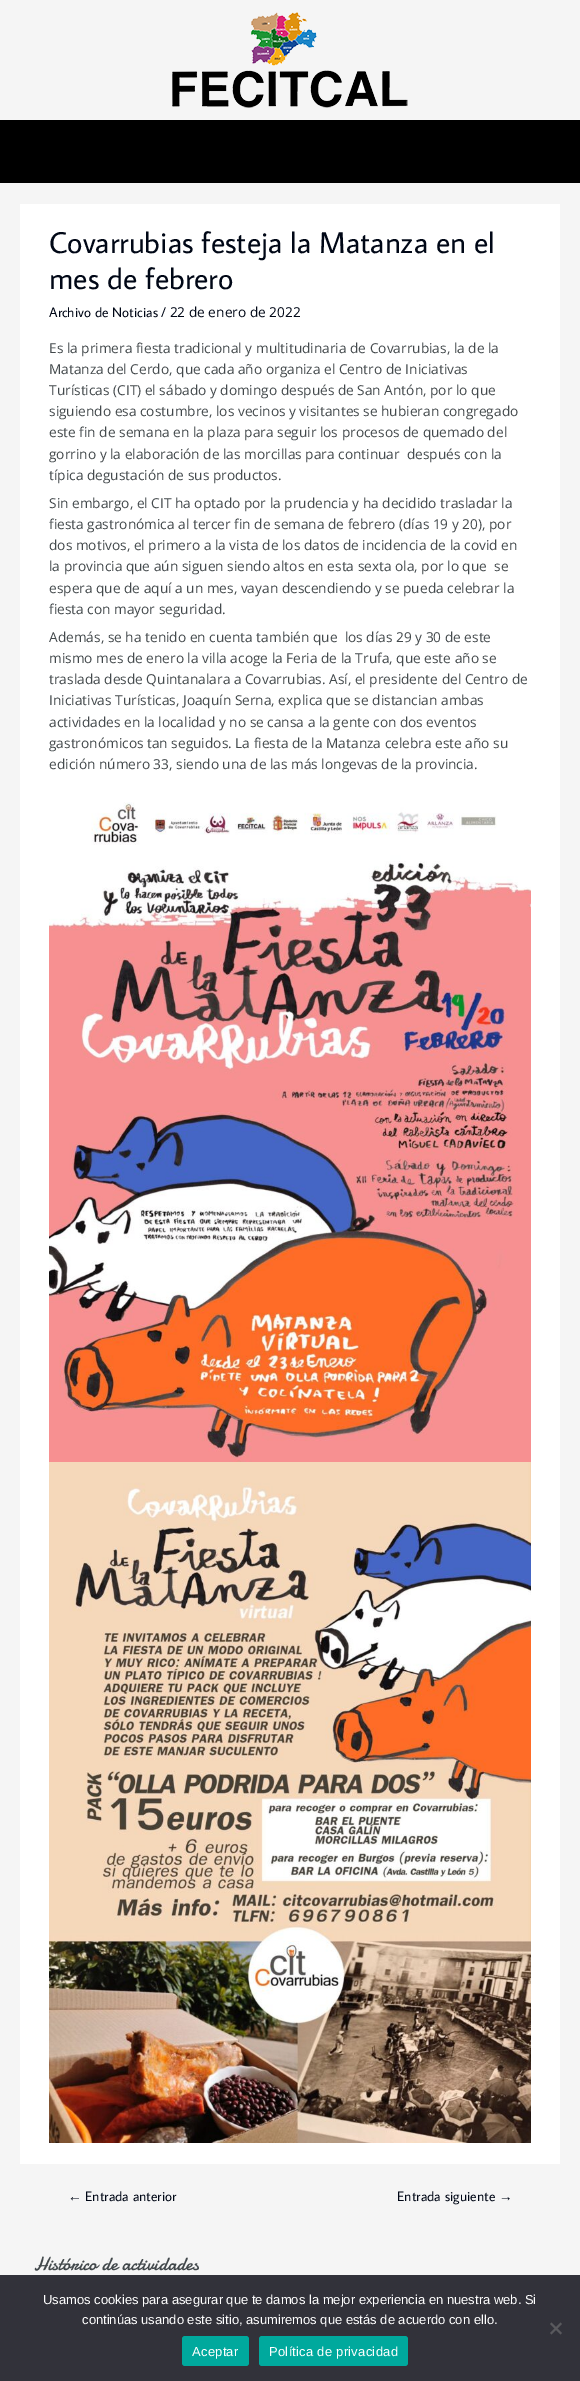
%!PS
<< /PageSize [580 2381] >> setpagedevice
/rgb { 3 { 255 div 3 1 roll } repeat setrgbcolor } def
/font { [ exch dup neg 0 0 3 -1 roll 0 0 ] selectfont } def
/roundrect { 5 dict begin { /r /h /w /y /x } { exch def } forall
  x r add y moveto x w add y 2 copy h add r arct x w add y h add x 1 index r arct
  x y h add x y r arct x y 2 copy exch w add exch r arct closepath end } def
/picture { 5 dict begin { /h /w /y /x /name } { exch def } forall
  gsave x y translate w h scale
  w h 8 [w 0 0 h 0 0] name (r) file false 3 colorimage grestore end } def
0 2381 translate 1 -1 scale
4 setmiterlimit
245 245 245 rgb
0 0 580 2381 rectfill
(img/1.rgb) 172 12 236 96 picture
0 0 0 rgb
0 120 580 63 rectfill
255 255 255 rgb
20 204 540 1960 rectfill
(img/2.rgb) 49 802 482 660 picture
(img/3.rgb) 49 1462 482 681 picture
50 50 58 rgb
0 2275 580 106 rectfill
89 89 93 rgb
560.5 2322.5 moveto 562 2324 lineto 551.5 2334.5 lineto 550 2333 lineto closepath fill
550 2324 moveto 551.5 2322.5 lineto 562 2333 lineto 560.5 2334.5 lineto closepath fill
0 169 157 rgb
182 2336 67 30 3 roundrect fill
259 2336 149 30 3 roundrect fill
/AverageSans-Regular 30 font
0 7 22 rgb
49 253 moveto (Covarrubias festeja la Matanza en el) show
49 289 moveto (mes de febrero) show
/AverageSans-Regular 13.7 font
49 317 moveto (Archivo de Noticias) show
/OpenSans-Regular 13.7 font
161 317 moveto (/ 22 de enero de 2022) show
66 72 75 rgb
[
  [(Es la primera fiesta tradicional y multitudinaria de Covarrubias, la de la) 49 353]
  [(Matanza del Cerdo, que cada año organiza el Centro de Iniciativas) 49 374]
  [(Turísticas \(CIT\) el sábado y domingo después de San Antón, por lo que) 49 395]
  [(siguiendo esa costumbre, los vecinos y visitantes se hubieran congregado) 49 416]
  [(este fin de semana en la plaza para seguir los procesos de quemado del) 49 437]
  [(gorrino y la elaboración de las morcillas para continuar  después con la) 49 459]
  [(típica degustación de sus productos.) 49 480]
  [(Sin embargo, el CIT ha optado por la prudencia y ha decidido trasladar la) 49 508]
  [(fiesta gastronómica al tercer fin de semana de febrero \(días 19 y 20\), por) 49 529]
  [(dos motivos, el primero a la vista de los datos de incidencia de la covid en) 49 550]
  [(la provincia que aún siguen siendo altos en esta sexta ola, por lo que  se) 49 571]
  [(espera que de aquí a un mes, vayan descendiendo y se pueda celebrar la) 49 593]
  [(fiesta con mayor seguridad.) 49 614]
  [(Además, se ha tenido en cuenta también que  los días 29 y 30 de este) 49 642]
  [(mismo mes de enero la villa acoge la Feria de la Trufa, que este año se) 49 663]
  [(traslada desde Quintanalara a Covarrubias. Así, el presidente del Centro de) 49 684]
  [(Iniciativas Turísticas, Joaquín Serna, explica que se distancian ambas) 49 705]
  [(actividades en la localidad y no se cansa a la gente con dos eventos) 49 727]
  [(gastronómicos tan seguidos. La fiesta de la Matanza celebra este año su) 49 748]
  [(edición número 33, siendo una de las más longevas de la provincia.) 49 769]
] { aload pop moveto show } forall
/LiberationSans-Regular 13.7 font
0 7 22 rgb
68 2201 moveto (←) show
/AverageSans-Regular 13.7 font
85 2201 moveto (Entrada anterior) show
397 2201 moveto (Entrada siguiente) show
/LiberationSans-Regular 13.7 font
499 2201 moveto (→) show
/Damion-Regular 19.25 font
66 72 75 rgb
34 2270 moveto (Histórico de actividades) show
/LiberationSans-Regular 13 font
255 255 255 rgb
43 2304 moveto (Usamos cookies para asegurar que te damos la mejor experiencia en nuestra web. Si) show
82 2324 moveto (continúas usando este sitio, asumiremos que estás de acuerdo con ello.) show
192 2356 moveto 0.25 0 (Aceptar) ashow
269 2356 moveto 0.25 0 (Política de privacidad) ashow
showpage
